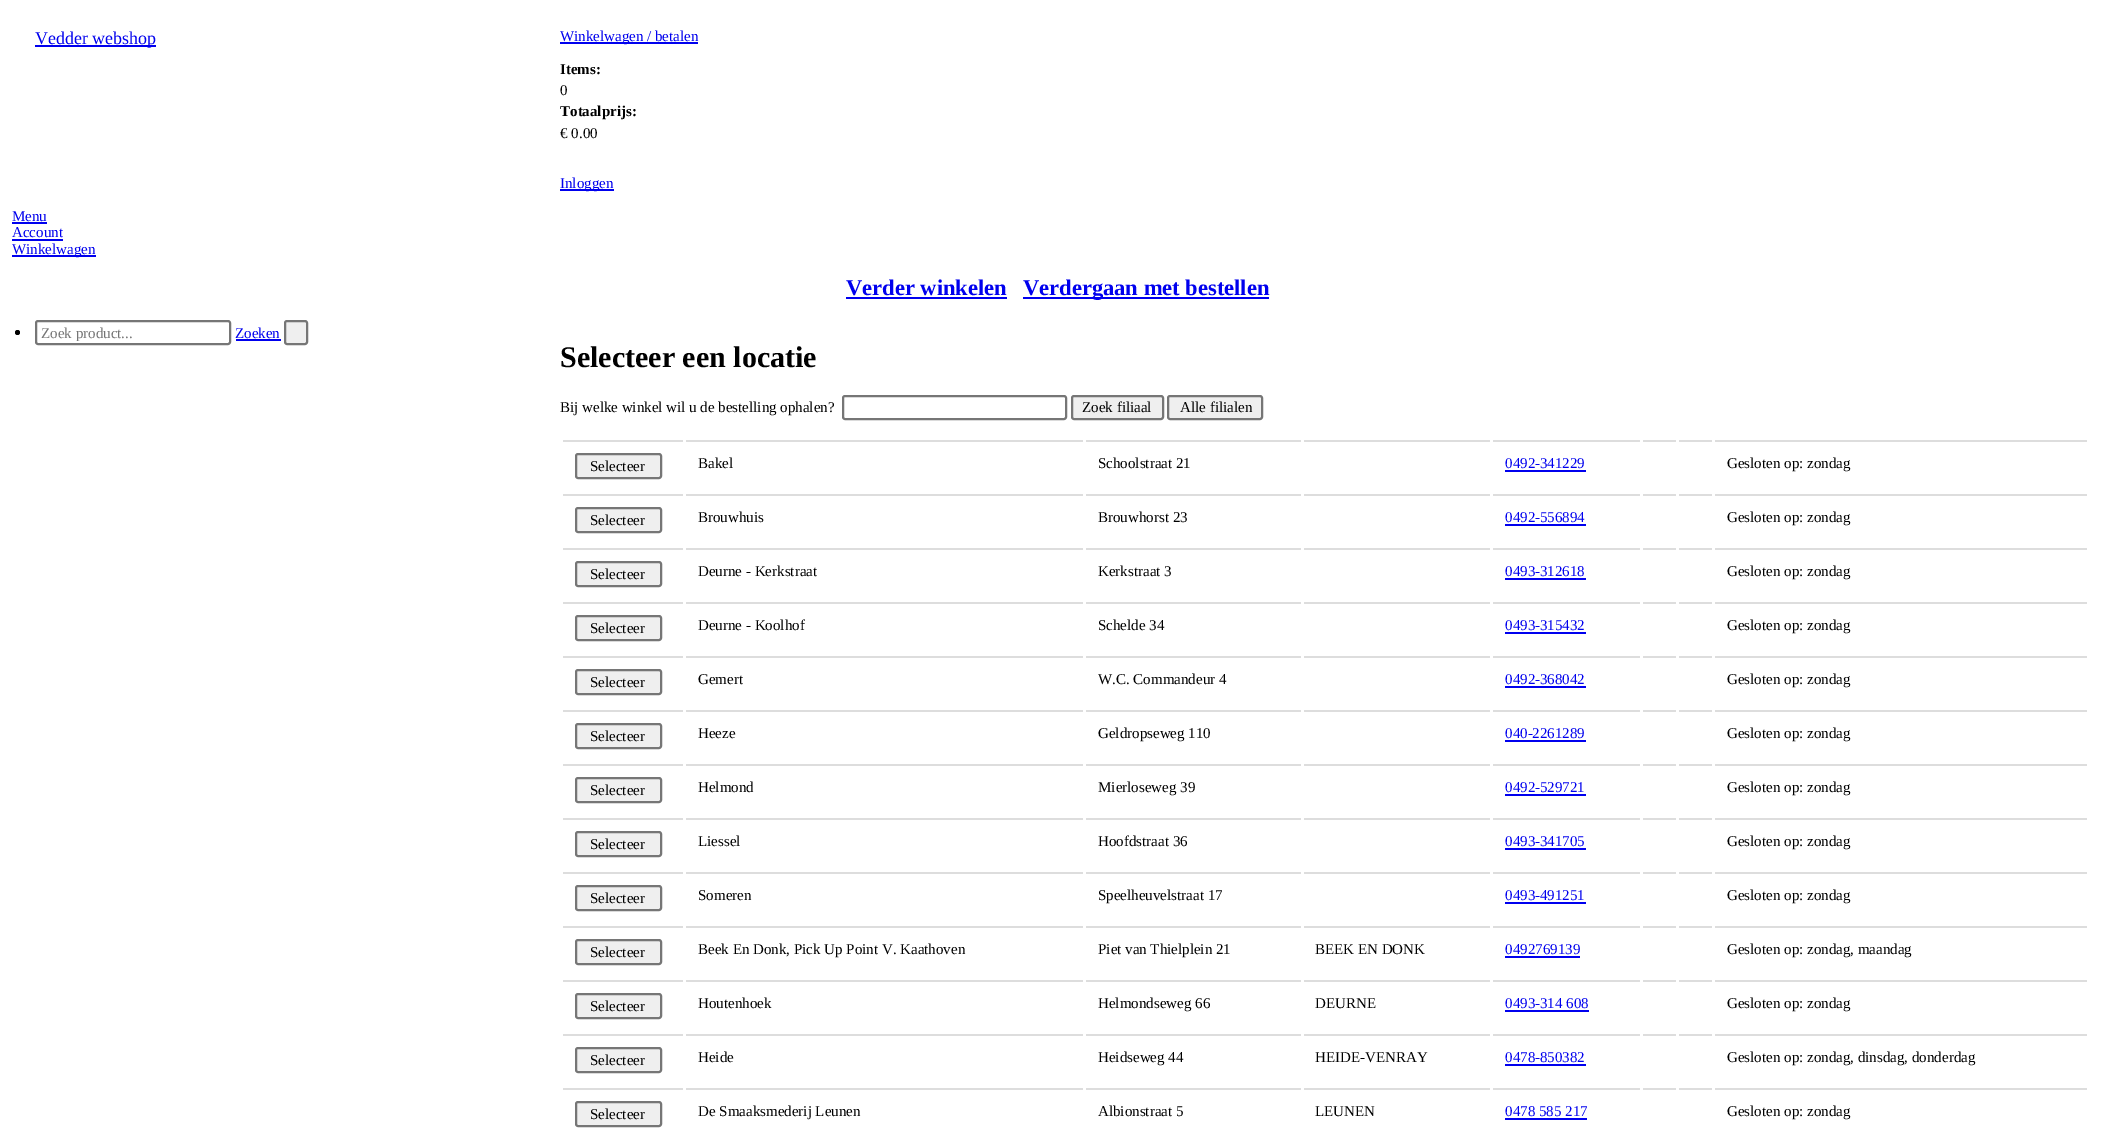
%!PS
<< /PageSize [2114 1128] >> setpagedevice
/rgb { 3 { 255 div 3 1 roll } repeat setrgbcolor } def
/font { [ exch dup neg 0 0 3 -1 roll 0 0 ] selectfont } def
/circle { newpath 0 360 arc closepath } def
/roundrect { 5 dict begin { /r /h /w /y /x } { exch def } forall
  x r add y moveto x w add y 2 copy h add r arct x w add y h add x 1 index r arct
  x y h add x y r arct x y 2 copy exch w add exch r arct closepath end } def
0 1128 translate 1 -1 scale
4 setmiterlimit
255 255 255 rgb
0 0 2114 1128 rectfill
[
  [35 45 121 2 0 0 238]
  [560 42 138 2 0 0 238]
  [560 189 54 2 0 0 238]
  [12 222 35 2 0 0 238]
  [12 239 51 2 0 0 238]
  [12 255 84 2 0 0 238]
  [846 297 161 2 0 0 238]
  [1023 297 246 2 0 0 238]
] { aload pop rgb rectfill } forall
0 0 0 rgb
17.5 332.5 2.5 circle fill
118 118 118 rgb
2 setlinewidth
36 321 194 23 2 roundrect stroke
0 0 238 rgb
236 339 45 2 rectfill
239 239 239 rgb
285 321 22 23 2 roundrect gsave fill grestore
118 118 118 rgb
stroke
843 396 223 23 2 roundrect stroke
239 239 239 rgb
1072 396 91 23 2 roundrect gsave fill grestore
118 118 118 rgb
stroke
239 239 239 rgb
1168 396 94 23 2 roundrect gsave fill grestore
118 118 118 rgb
stroke
[
  [1304 440 186 2 221 221 221]
  [1643 440 33 2 221 221 221]
  [1679 440 33 2 221 221 221]
  [563 440 120 2 221 221 221]
] { aload pop rgb rectfill } forall
239 239 239 rgb
576 454 85 24 2 roundrect gsave fill grestore
118 118 118 rgb
stroke
[
  [686 440 397 2 221 221 221]
  [1086 440 215 2 221 221 221]
  [1493 440 147 2 221 221 221]
  [1505 470 81 2 0 0 238]
  [1715 440 372 2 221 221 221]
  [1304 494 186 2 221 221 221]
  [1643 494 33 2 221 221 221]
  [1679 494 33 2 221 221 221]
  [563 494 120 2 221 221 221]
] { aload pop rgb rectfill } forall
239 239 239 rgb
576 508 85 24 2 roundrect gsave fill grestore
118 118 118 rgb
stroke
[
  [686 494 397 2 221 221 221]
  [1086 494 215 2 221 221 221]
  [1493 494 147 2 221 221 221]
  [1505 524 81 2 0 0 238]
  [1715 494 372 2 221 221 221]
  [1304 548 186 2 221 221 221]
  [1643 548 33 2 221 221 221]
  [1679 548 33 2 221 221 221]
  [563 548 120 2 221 221 221]
] { aload pop rgb rectfill } forall
239 239 239 rgb
576 562 85 24 2 roundrect gsave fill grestore
118 118 118 rgb
stroke
[
  [686 548 397 2 221 221 221]
  [1086 548 215 2 221 221 221]
  [1493 548 147 2 221 221 221]
  [1505 578 81 2 0 0 238]
  [1715 548 372 2 221 221 221]
  [1304 602 186 2 221 221 221]
  [1643 602 33 2 221 221 221]
  [1679 602 33 2 221 221 221]
  [563 602 120 2 221 221 221]
] { aload pop rgb rectfill } forall
239 239 239 rgb
576 616 85 24 2 roundrect gsave fill grestore
118 118 118 rgb
stroke
[
  [686 602 397 2 221 221 221]
  [1086 602 215 2 221 221 221]
  [1493 602 147 2 221 221 221]
  [1505 632 81 2 0 0 238]
  [1715 602 372 2 221 221 221]
  [1304 656 186 2 221 221 221]
  [1643 656 33 2 221 221 221]
  [1679 656 33 2 221 221 221]
  [563 656 120 2 221 221 221]
] { aload pop rgb rectfill } forall
239 239 239 rgb
576 670 85 24 2 roundrect gsave fill grestore
118 118 118 rgb
stroke
[
  [686 656 397 2 221 221 221]
  [1086 656 215 2 221 221 221]
  [1493 656 147 2 221 221 221]
  [1505 686 81 2 0 0 238]
  [1715 656 372 2 221 221 221]
  [1304 710 186 2 221 221 221]
  [1643 710 33 2 221 221 221]
  [1679 710 33 2 221 221 221]
  [563 710 120 2 221 221 221]
] { aload pop rgb rectfill } forall
239 239 239 rgb
576 724 85 24 2 roundrect gsave fill grestore
118 118 118 rgb
stroke
[
  [686 710 397 2 221 221 221]
  [1086 710 215 2 221 221 221]
  [1493 710 147 2 221 221 221]
  [1505 740 81 2 0 0 238]
  [1715 710 372 2 221 221 221]
  [1304 764 186 2 221 221 221]
  [1643 764 33 2 221 221 221]
  [1679 764 33 2 221 221 221]
  [563 764 120 2 221 221 221]
] { aload pop rgb rectfill } forall
239 239 239 rgb
576 778 85 24 2 roundrect gsave fill grestore
118 118 118 rgb
stroke
[
  [686 764 397 2 221 221 221]
  [1086 764 215 2 221 221 221]
  [1493 764 147 2 221 221 221]
  [1505 794 81 2 0 0 238]
  [1715 764 372 2 221 221 221]
  [1304 818 186 2 221 221 221]
  [1643 818 33 2 221 221 221]
  [1679 818 33 2 221 221 221]
  [563 818 120 2 221 221 221]
] { aload pop rgb rectfill } forall
239 239 239 rgb
576 832 85 24 2 roundrect gsave fill grestore
118 118 118 rgb
stroke
[
  [686 818 397 2 221 221 221]
  [1086 818 215 2 221 221 221]
  [1493 818 147 2 221 221 221]
  [1505 848 81 2 0 0 238]
  [1715 818 372 2 221 221 221]
  [1304 872 186 2 221 221 221]
  [1643 872 33 2 221 221 221]
  [1679 872 33 2 221 221 221]
  [563 872 120 2 221 221 221]
] { aload pop rgb rectfill } forall
239 239 239 rgb
576 886 85 24 2 roundrect gsave fill grestore
118 118 118 rgb
stroke
[
  [686 872 397 2 221 221 221]
  [1086 872 215 2 221 221 221]
  [1493 872 147 2 221 221 221]
  [1505 902 81 2 0 0 238]
  [1715 872 372 2 221 221 221]
  [1643 926 33 2 221 221 221]
  [1679 926 33 2 221 221 221]
  [563 926 120 2 221 221 221]
] { aload pop rgb rectfill } forall
239 239 239 rgb
576 940 85 24 2 roundrect gsave fill grestore
118 118 118 rgb
stroke
[
  [686 926 397 2 221 221 221]
  [1086 926 215 2 221 221 221]
  [1304 926 186 2 221 221 221]
  [1493 926 147 2 221 221 221]
  [1505 956 75 2 0 0 238]
  [1715 926 372 2 221 221 221]
  [1643 980 33 2 221 221 221]
  [1679 980 33 2 221 221 221]
  [563 980 120 2 221 221 221]
] { aload pop rgb rectfill } forall
239 239 239 rgb
576 994 85 24 2 roundrect gsave fill grestore
118 118 118 rgb
stroke
[
  [686 980 397 2 221 221 221]
  [1086 980 215 2 221 221 221]
  [1304 980 186 2 221 221 221]
  [1493 980 147 2 221 221 221]
  [1505 1010 84 2 0 0 238]
  [1715 980 372 2 221 221 221]
  [1643 1034 33 2 221 221 221]
  [1679 1034 33 2 221 221 221]
  [563 1034 120 2 221 221 221]
] { aload pop rgb rectfill } forall
239 239 239 rgb
576 1048 85 24 2 roundrect gsave fill grestore
118 118 118 rgb
stroke
[
  [686 1034 397 2 221 221 221]
  [1086 1034 215 2 221 221 221]
  [1304 1034 186 2 221 221 221]
  [1493 1034 147 2 221 221 221]
  [1505 1064 81 2 0 0 238]
  [1715 1034 372 2 221 221 221]
  [1643 1088 33 2 221 221 221]
  [1679 1088 33 2 221 221 221]
  [563 1088 120 2 221 221 221]
] { aload pop rgb rectfill } forall
239 239 239 rgb
576 1102 85 24 2 roundrect gsave fill grestore
118 118 118 rgb
stroke
[
  [686 1088 397 2 221 221 221]
  [1086 1088 215 2 221 221 221]
  [1304 1088 186 2 221 221 221]
  [1493 1088 147 2 221 221 221]
  [1505 1118 82 2 0 0 238]
  [1715 1088 372 2 221 221 221]
] { aload pop rgb rectfill } forall
/LiberationSerif-Regular 18 font
0 0 238 rgb
35 44 moveto (Vedder webshop) show
/LiberationSerif-Regular 15 font
560 41 moveto (Winkelwagen / betalen) show
/LiberationSerif-Bold 15 font
0 0 0 rgb
560 74 moveto (Items:) show
/LiberationSerif-Regular 15 font
560 95 moveto (0) show
/LiberationSerif-Bold 15 font
560 116 moveto (Totaalprijs:) show
/LiberationSerif-Regular 15 font
560 138 moveto (€ 0.00) show
0 0 238 rgb
[
  [(Inloggen) 560 188]
  [(Menu) 12 221]
  [(Account) 12 237]
  [(Winkelwagen) 12 254]
] { aload pop moveto show } forall
/LiberationSerif-Bold 22.5 font
846 295 moveto (Verder winkelen) show
1023 295 moveto (Verdergaan met bestellen) show
gsave
41 324 184 17 rectclip
/LiberationSerif-Regular 15 font
117 117 117 rgb
41 338 moveto (Zoek product...) show
grestore
/LiberationSerif-Regular 15 font
235 338 moveto (Zoeken) show
/LiberationSerif-Bold 30 font
0 0 0 rgb
560 367 moveto (Selecteer een locatie) show
/LiberationSerif-Regular 15 font
[
  [(Bij welke winkel wil u de bestelling ophalen?) 560 412]
  [(Zoek filiaal) 1082 412]
  [(Alle filialen) 1180 412]
  [(Selecteer) 590 471]
  [(Bakel) 698 468]
  [(Schoolstraat 21) 1098 468]
] { aload pop moveto show } forall
0 0 238 rgb
1505 468 moveto (0492-341229) show
0 0 0 rgb
[
  [(Gesloten op: zondag) 1727 468]
  [(Selecteer) 590 525]
  [(Brouwhuis) 698 522]
  [(Brouwhorst 23) 1098 522]
] { aload pop moveto show } forall
0 0 238 rgb
1505 522 moveto (0492-556894) show
0 0 0 rgb
[
  [(Gesloten op: zondag) 1727 522]
  [(Selecteer) 590 579]
  [(Deurne - Kerkstraat) 698 576]
  [(Kerkstraat 3) 1098 576]
] { aload pop moveto show } forall
0 0 238 rgb
1505 576 moveto (0493-312618) show
0 0 0 rgb
[
  [(Gesloten op: zondag) 1727 576]
  [(Selecteer) 590 633]
  [(Deurne - Koolhof) 698 630]
  [(Schelde 34) 1098 630]
] { aload pop moveto show } forall
0 0 238 rgb
1505 630 moveto (0493-315432) show
0 0 0 rgb
[
  [(Gesloten op: zondag) 1727 630]
  [(Selecteer) 590 687]
  [(Gemert) 698 684]
  [(W.C. Commandeur 4) 1098 684]
] { aload pop moveto show } forall
0 0 238 rgb
1505 684 moveto (0492-368042) show
0 0 0 rgb
[
  [(Gesloten op: zondag) 1727 684]
  [(Selecteer) 590 741]
  [(Heeze) 698 738]
  [(Geldropseweg 110) 1098 738]
] { aload pop moveto show } forall
0 0 238 rgb
1505 738 moveto (040-2261289) show
0 0 0 rgb
[
  [(Gesloten op: zondag) 1727 738]
  [(Selecteer) 590 795]
  [(Helmond) 698 792]
  [(Mierloseweg 39) 1098 792]
] { aload pop moveto show } forall
0 0 238 rgb
1505 792 moveto (0492-529721) show
0 0 0 rgb
[
  [(Gesloten op: zondag) 1727 792]
  [(Selecteer) 590 849]
  [(Liessel) 698 846]
  [(Hoofdstraat 36) 1098 846]
] { aload pop moveto show } forall
0 0 238 rgb
1505 846 moveto (0493-341705) show
0 0 0 rgb
[
  [(Gesloten op: zondag) 1727 846]
  [(Selecteer) 590 903]
  [(Someren) 698 900]
  [(Speelheuvelstraat 17) 1098 900]
] { aload pop moveto show } forall
0 0 238 rgb
1505 900 moveto (0493-491251) show
0 0 0 rgb
[
  [(Gesloten op: zondag) 1727 900]
  [(Selecteer) 590 957]
  [(Beek En Donk, Pick Up Point V. Kaathoven) 698 954]
  [(Piet van Thielplein 21) 1098 954]
  [(BEEK EN DONK) 1315 954]
] { aload pop moveto show } forall
0 0 238 rgb
1505 954 moveto (0492769139) show
0 0 0 rgb
[
  [(Gesloten op: zondag, maandag) 1727 954]
  [(Selecteer) 590 1011]
  [(Houtenhoek) 698 1008]
  [(Helmondseweg 66) 1098 1008]
  [(DEURNE) 1315 1008]
] { aload pop moveto show } forall
0 0 238 rgb
1505 1008 moveto (0493-314 608) show
0 0 0 rgb
[
  [(Gesloten op: zondag) 1727 1008]
  [(Selecteer) 590 1065]
  [(Heide) 698 1062]
  [(Heidseweg 44) 1098 1062]
  [(HEIDE-VENRAY) 1315 1062]
] { aload pop moveto show } forall
0 0 238 rgb
1505 1062 moveto (0478-850382) show
0 0 0 rgb
[
  [(Gesloten op: zondag, dinsdag, donderdag) 1727 1062]
  [(Selecteer) 590 1119]
  [(De Smaaksmederij Leunen) 698 1116]
  [(Albionstraat 5) 1098 1116]
  [(LEUNEN) 1315 1116]
] { aload pop moveto show } forall
0 0 238 rgb
1505 1116 moveto (0478 585 217) show
0 0 0 rgb
1727 1116 moveto (Gesloten op: zondag) show
showpage
